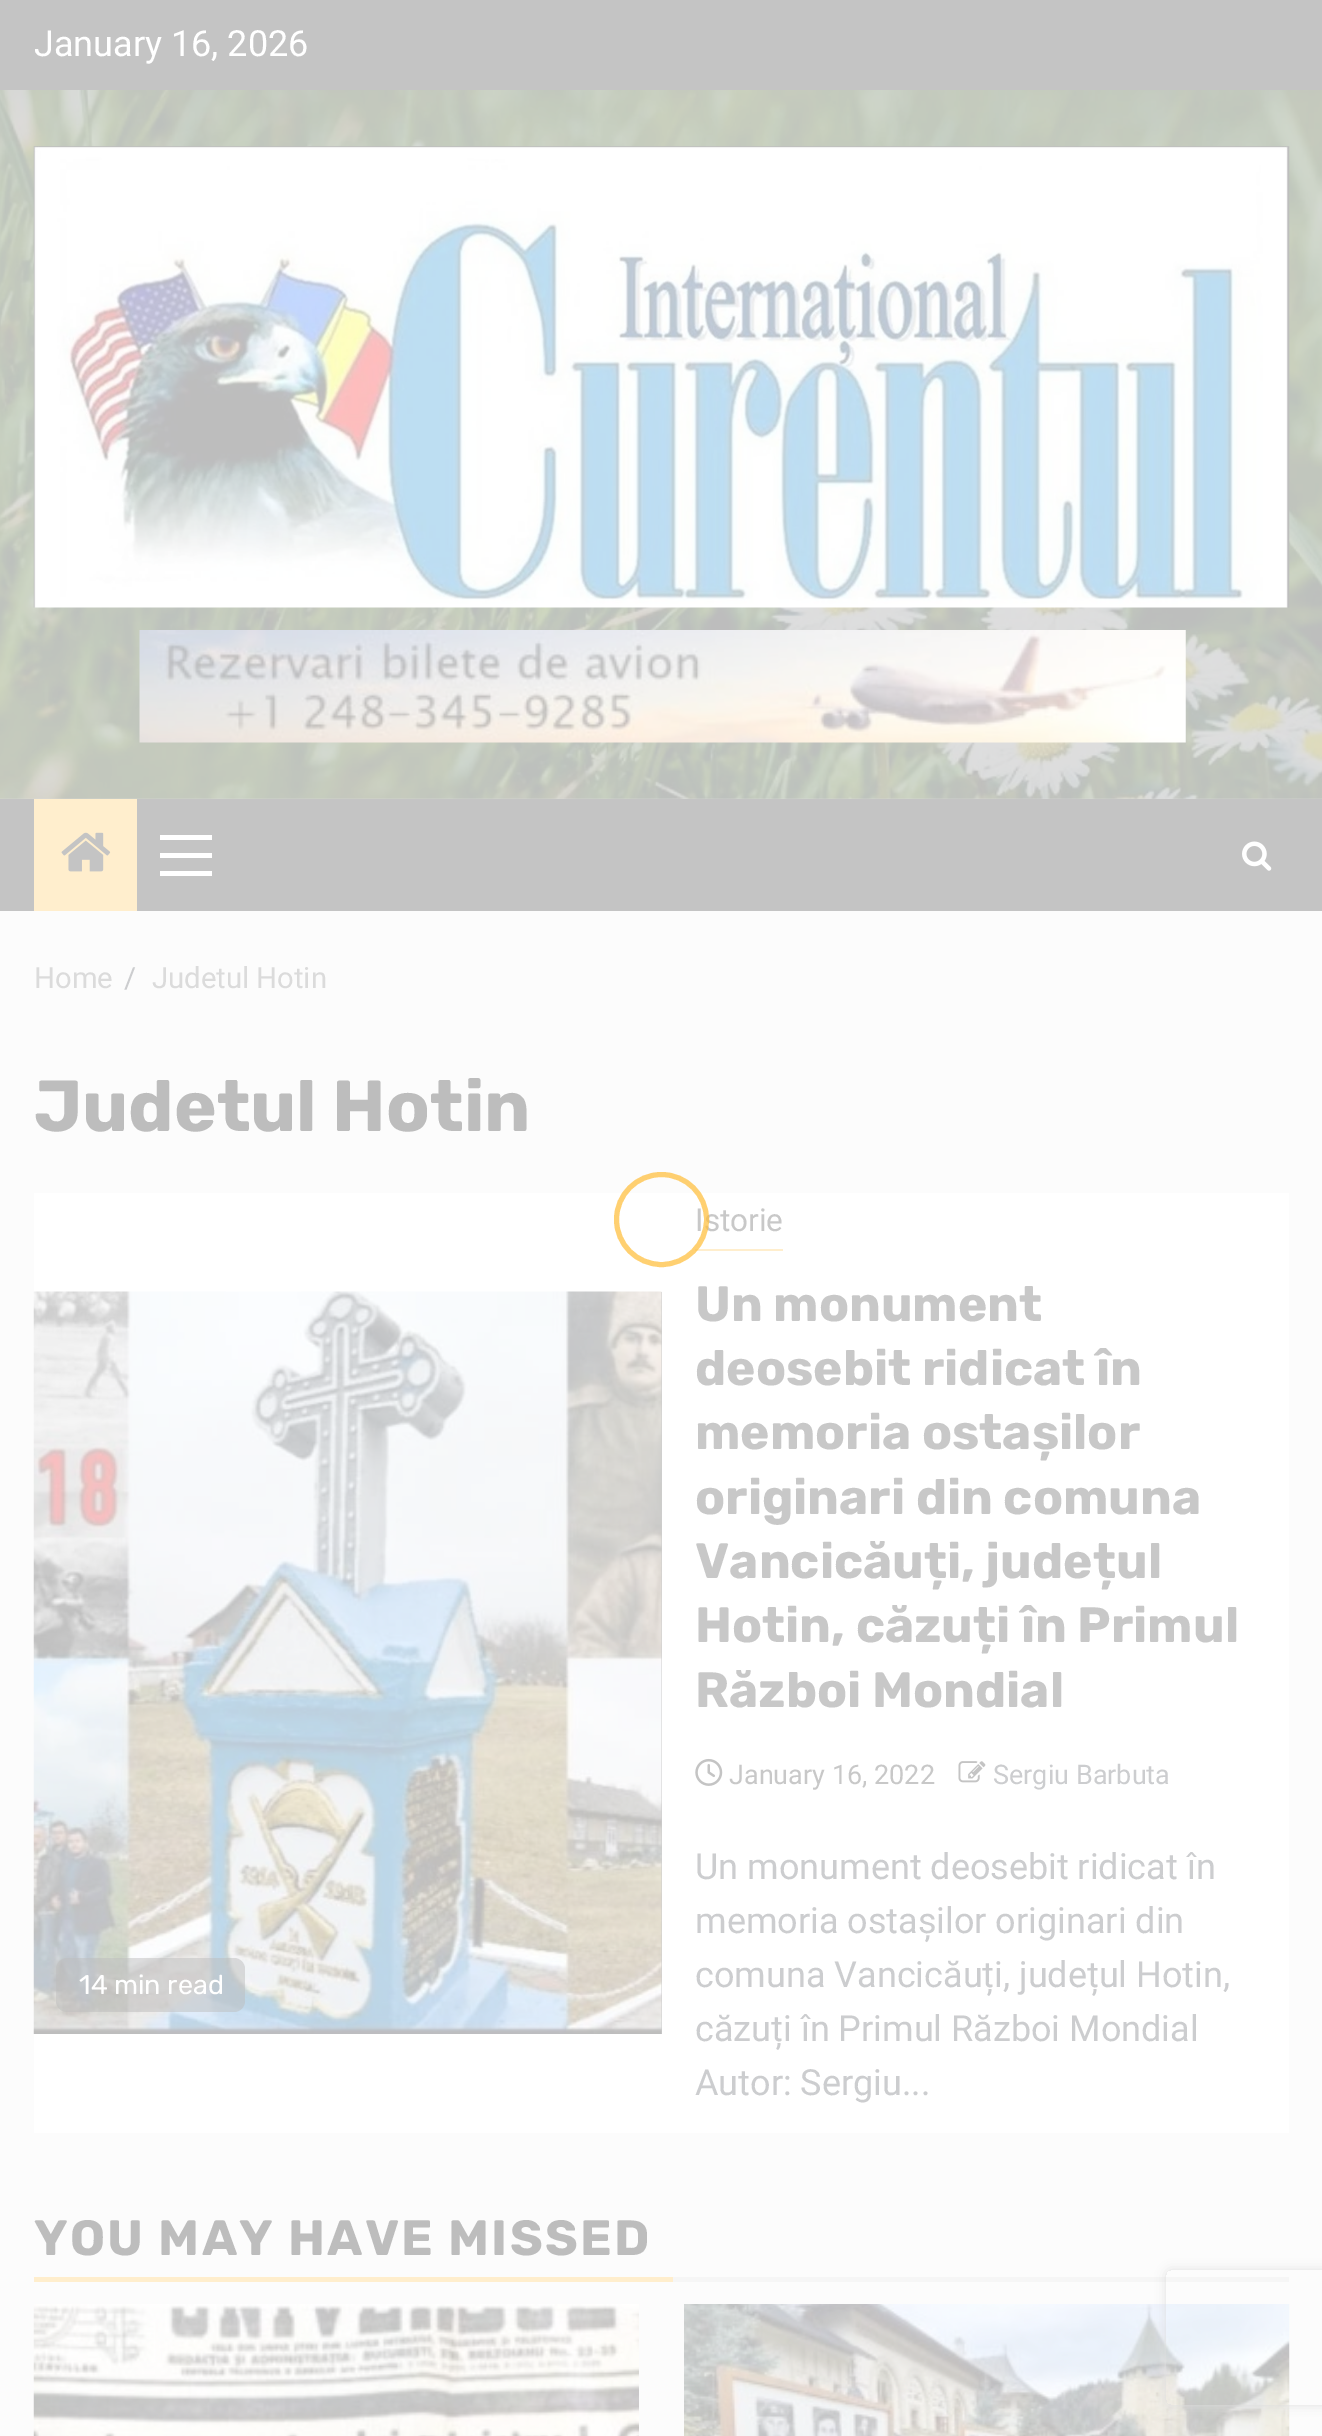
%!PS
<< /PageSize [1322 2436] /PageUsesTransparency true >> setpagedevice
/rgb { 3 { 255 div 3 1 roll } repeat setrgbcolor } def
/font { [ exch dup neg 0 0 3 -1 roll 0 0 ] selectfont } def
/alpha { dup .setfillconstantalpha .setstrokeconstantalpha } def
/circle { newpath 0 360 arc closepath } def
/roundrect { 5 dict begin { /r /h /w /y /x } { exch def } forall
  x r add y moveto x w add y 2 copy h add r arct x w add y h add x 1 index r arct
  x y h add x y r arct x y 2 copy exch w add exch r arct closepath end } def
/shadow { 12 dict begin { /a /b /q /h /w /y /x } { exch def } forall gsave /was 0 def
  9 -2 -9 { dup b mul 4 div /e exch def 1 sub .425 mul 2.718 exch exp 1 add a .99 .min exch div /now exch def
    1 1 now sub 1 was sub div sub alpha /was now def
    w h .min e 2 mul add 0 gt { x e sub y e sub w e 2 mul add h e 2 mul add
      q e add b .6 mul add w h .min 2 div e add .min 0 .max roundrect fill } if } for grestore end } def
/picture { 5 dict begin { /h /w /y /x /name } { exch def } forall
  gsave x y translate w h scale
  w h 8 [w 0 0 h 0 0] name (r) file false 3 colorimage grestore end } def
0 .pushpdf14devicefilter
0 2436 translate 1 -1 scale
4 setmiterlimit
252 252 252 rgb
0 0 1322 2436 rectfill
196 196 196 rgb
0 0 1322 90 rectfill
(img/1.rgb) 0 90 1322 709 picture
(img/2.rgb) 33 146 1257 462 picture
(img/3.rgb) 139 630 1047 113 picture
0 799 1322 112 rectfill
255 238 205 rgb
34 799 103 112 rectfill
(img/4.rgb) 61 832 50 40 picture
[
  [160 853 52 5 255 255 255]
  [160 835 52 5 255 255 255]
  [160 871 52 5 255 255 255]
] { aload pop rgb rectfill } forall
(img/5.rgb) 1242 841 30 30 picture
34 1193 1255 940 rectfill
205 205 205 rgb
661 1292 1 742 rectfill
(img/6.rgb) 33 1291 629 743 picture
0.5 alpha
189 189 189 rgb
56 1958 189 54 11 roundrect fill
1 alpha
255 238 205 rgb
695 1249 88 2 rectfill
(img/7.rgb) 695 1758 28 28 picture
(img/8.rgb) 958 1761 28 22 picture
34 2277 639 5 rectfill
246 246 246 rgb
673 2277 616 5 rectfill
(img/9.rgb) 33 2304 606 132 picture
(img/10.rgb) 684 2304 606 132 picture
gsave
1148 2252 moveto 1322 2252 lineto 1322 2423 lineto 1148 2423 lineto closepath 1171 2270 moveto 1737 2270 lineto 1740 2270 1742 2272 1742 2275 curveto 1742 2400 lineto 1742 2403 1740 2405 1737 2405 curveto 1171 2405 lineto 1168 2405 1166 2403 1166 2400 curveto 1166 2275 lineto 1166 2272 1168 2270 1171 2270 curveto closepath eoclip newpath
222 222 222 rgb
1166 2270 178 135 5 5.5 1 shadow
grestore
/Roboto-Regular 36 font
255 255 255 rgb
34 56 moveto (January 16, 2026) show
/Roboto-Regular 29.25 font
219 219 219 rgb
34 988 moveto (Home) show
204 205 207 rgb
124 988 moveto (/) show
219 219 219 rgb
152 988 moveto (Judetul Hotin) show
/Rubik-Bold 72 font
189 189 189 rgb
34 1131 moveto (Judetul Hotin) show
/Rubik-Regular 27 font
255 255 255 rgb
79 1994 moveto (14 min read) show
/Roboto-Regular 31.5 font
200 200 200 rgb
695 1231 moveto (Istorie) show
/Rubik-Bold 49.5 font
[
  [(Un monument) 695 1321]
  [(deosebit ridicat în) 695 1385]
  [(memoria ostașilor) 695 1449]
  [(originari din comuna) 695 1514]
  [(Vancicăuți, județul) 695 1578]
  [(Hotin, căzuți în Primul) 695 1642]
  [(Război Mondial) 695 1707]
] { aload pop moveto show } forall
/Roboto-Regular 27 font
729 1784 moveto (January 16, 2022) show
204 205 207 rgb
993 1784 moveto (Sergiu Barbuta) show
/Roboto-Regular 36 font
[
  [(Un monument deosebit ridicat în) 695 1879]
  [(memoria ostașilor originari din) 695 1933]
  [(comuna Vancicăuți, județul Hotin,) 695 1987]
  [(căzuți în Primul Război Mondial) 695 2041]
  [(Autor: Sergiu...) 695 2095]
] { aload pop moveto show } forall
/Rubik-Bold 49.5 font
189 189 189 rgb
34 2255 moveto 2.25 0 (YOU MAY HAVE MISSED) ashow
0.74 alpha
255 191 63 rgb
5 setlinewidth
661.5 1219.5 45 circle stroke
.poppdf14devicefilter showpage
